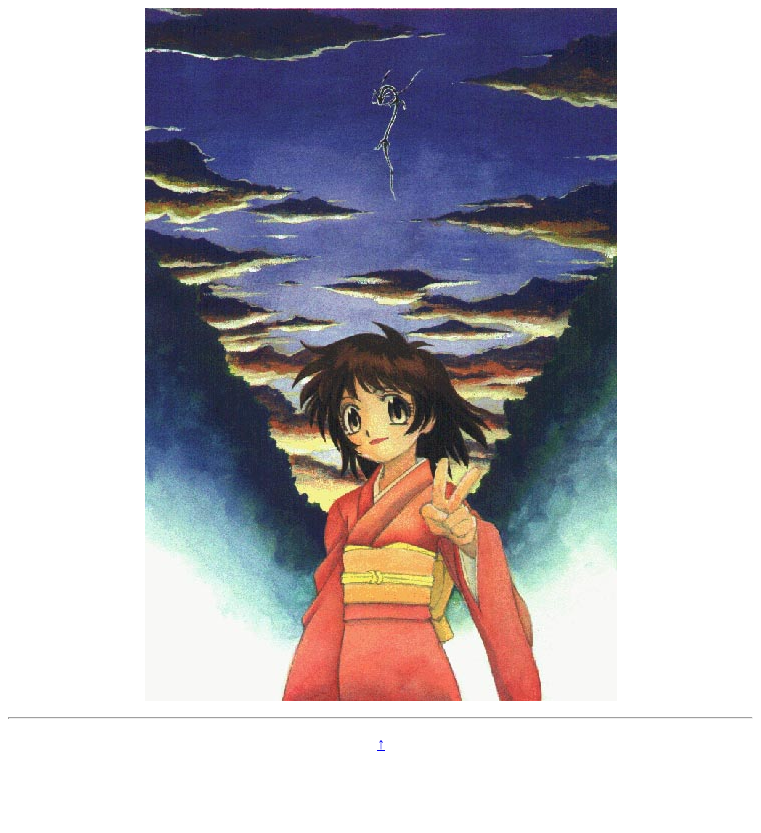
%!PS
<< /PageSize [761 833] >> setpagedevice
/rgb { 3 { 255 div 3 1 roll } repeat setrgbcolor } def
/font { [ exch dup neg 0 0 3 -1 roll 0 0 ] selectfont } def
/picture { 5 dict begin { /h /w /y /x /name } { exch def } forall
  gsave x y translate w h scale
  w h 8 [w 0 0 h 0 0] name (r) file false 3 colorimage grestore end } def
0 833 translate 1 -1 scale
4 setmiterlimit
255 255 255 rgb
0 0 761 833 rectfill
(img/1.rgb) 145 8 472 693 picture
[
  [8 717 745 1 159 159 159]
  [752 717 1 2 238 238 238]
  [8 718 745 1 238 238 238]
  [8 717 1 2 159 159 159]
  [377 750 8 1 0 0 238]
] { aload pop rgb rectfill } forall
/LiberationSerif-Regular 16 font
377 749 moveto (↑) show
showpage
